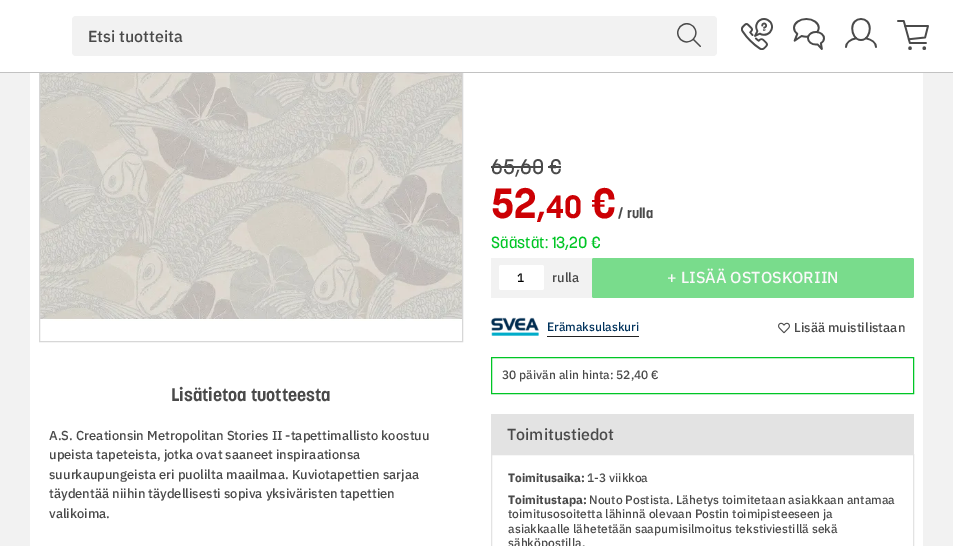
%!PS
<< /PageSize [953 546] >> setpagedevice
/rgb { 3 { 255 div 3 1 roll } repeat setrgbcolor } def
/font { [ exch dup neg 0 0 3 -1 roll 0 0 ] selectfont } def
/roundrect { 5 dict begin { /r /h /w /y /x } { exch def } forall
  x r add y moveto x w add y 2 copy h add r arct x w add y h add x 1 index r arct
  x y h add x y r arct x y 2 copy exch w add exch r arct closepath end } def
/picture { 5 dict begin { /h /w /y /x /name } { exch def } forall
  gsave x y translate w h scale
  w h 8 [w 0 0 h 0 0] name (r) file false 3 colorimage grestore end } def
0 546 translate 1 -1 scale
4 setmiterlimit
242 242 242 rgb
0 0 953 546 rectfill
255 255 255 rgb
30 73 893 473 rectfill
(img/6.rgb) 40 73 422 248 picture
215 215 215 rgb
39.5 -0.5 423 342 rectstroke
255 255 255 rgb
0 0 953 72 rectfill
194 194 194 rgb
0 72 953 1 rectfill
242 242 242 rgb
72 16 645 40 4 roundrect fill
(img/1.rgb) 677 23 24 24 picture
(img/2.rgb) 741 18 32 32 picture
(img/3.rgb) 793 18 32 32 picture
(img/4.rgb) 845 18 32 30 picture
(img/5.rgb) 897 20 32 30 picture
[
  [491 166 52 2 74 74 74]
  [548 166 13 2 74 74 74]
  [491 258 423 40 242 242 242]
] { aload pop rgb rectfill } forall
255 255 255 rgb
499 265 45 25 2 roundrect fill
121 220 140 rgb
592 258 322 40 2 roundrect fill
(img/7.rgb) 490 317 49 19 picture
34 34 34 rgb
547 336 92 1 rectfill
(img/8.rgb) 778 322 12 12 picture
0 198 37 rgb
491.5 357.5 422 36 rectstroke
227 227 227 rgb
491 414 423 40 rectfill
491.5 454.5 422 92 rectstroke
/IBMPlexSans-Medium 16 font
74 74 74 rgb
88 42 moveto (Etsi tuotteita) show
/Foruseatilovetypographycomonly-Medium 21 font
491 174 moveto (65,60 €) show
/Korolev-Bold 42 font
204 0 4 rgb
491 218 moveto (52) show
/Korolev-Bold 32 font
537 218 moveto (,40) show
/Korolev-Bold 42 font
591 218 moveto (€) show
/Korolev-Bold 14 font
74 74 74 rgb
618 218 moveto (/ rulla) show
/Foruseatilovetypographycomonly-Medium 16 font
0 198 37 rgb
491 248 moveto (Säästät: 13,20 €) show
/IBMPlexSans-Medium 12 font
0 0 0 rgb
517 282 moveto (1) show
/IBMPlexSans-Medium 13 font
74 74 74 rgb
552 282 moveto (rulla) show
/IBMPlexSans-Medium 16 font
249 249 249 rgb
667 283 moveto (+) show
681 283 moveto (LISÄÄ OSTOSKORIIN) show
/IBMPlexSans-Medium 12 font
0 50 92 rgb
547 331 moveto (Erämaksulaskuri) show
/IBMPlexSans-Medium 13 font
74 74 74 rgb
794 332 moveto (Lisää muistilistaan) show
/IBMPlexSans-Medium 12 font
502 379 moveto (30 päivän alin hinta: 52,40 €) show
/IBMPlexSans-Medium 16 font
507 440 moveto (Toimitustiedot) show
/IBMPlexSans-Bold 12 font
508 482 moveto (Toimitusaika:) show
/IBMPlexSans-Medium 12 font
587 482 moveto (1-3 viikkoa) show
/IBMPlexSans-Bold 12 font
508 504 moveto (Toimitustapa:) show
/IBMPlexSans-Medium 12 font
[
  [(Nouto Postista. Lähetys toimitetaan asiakkaan antamaa) 589 504]
  [(toimitusosoitetta lähinnä olevaan Postin toimipisteeseen ja) 508 518]
  [(asiakkaalle lähetetään saapumisilmoitus tekstiviestillä sekä) 508 533]
  [(sähköpostilla.) 508 547]
] { aload pop moveto show } forall
/Korolev-Bold 18 font
171 401 moveto (Lisätietoa tuotteesta) show
/IBMPlexSans-Medium 13 font
[
  [(A.S. Creationsin Metropolitan Stories II -tapettimallisto koostuu) 49 440]
  [(upeista tapeteista, jotka ovat saaneet inspiraationsa) 49 459]
  [(suurkaupungeista eri puolilta maailmaa. Kuviotapettien sarjaa) 49 479]
  [(täydentää niihin täydellisesti sopiva yksiväristen tapettien) 49 498]
  [(valikoima.) 49 518]
] { aload pop moveto show } forall
showpage
